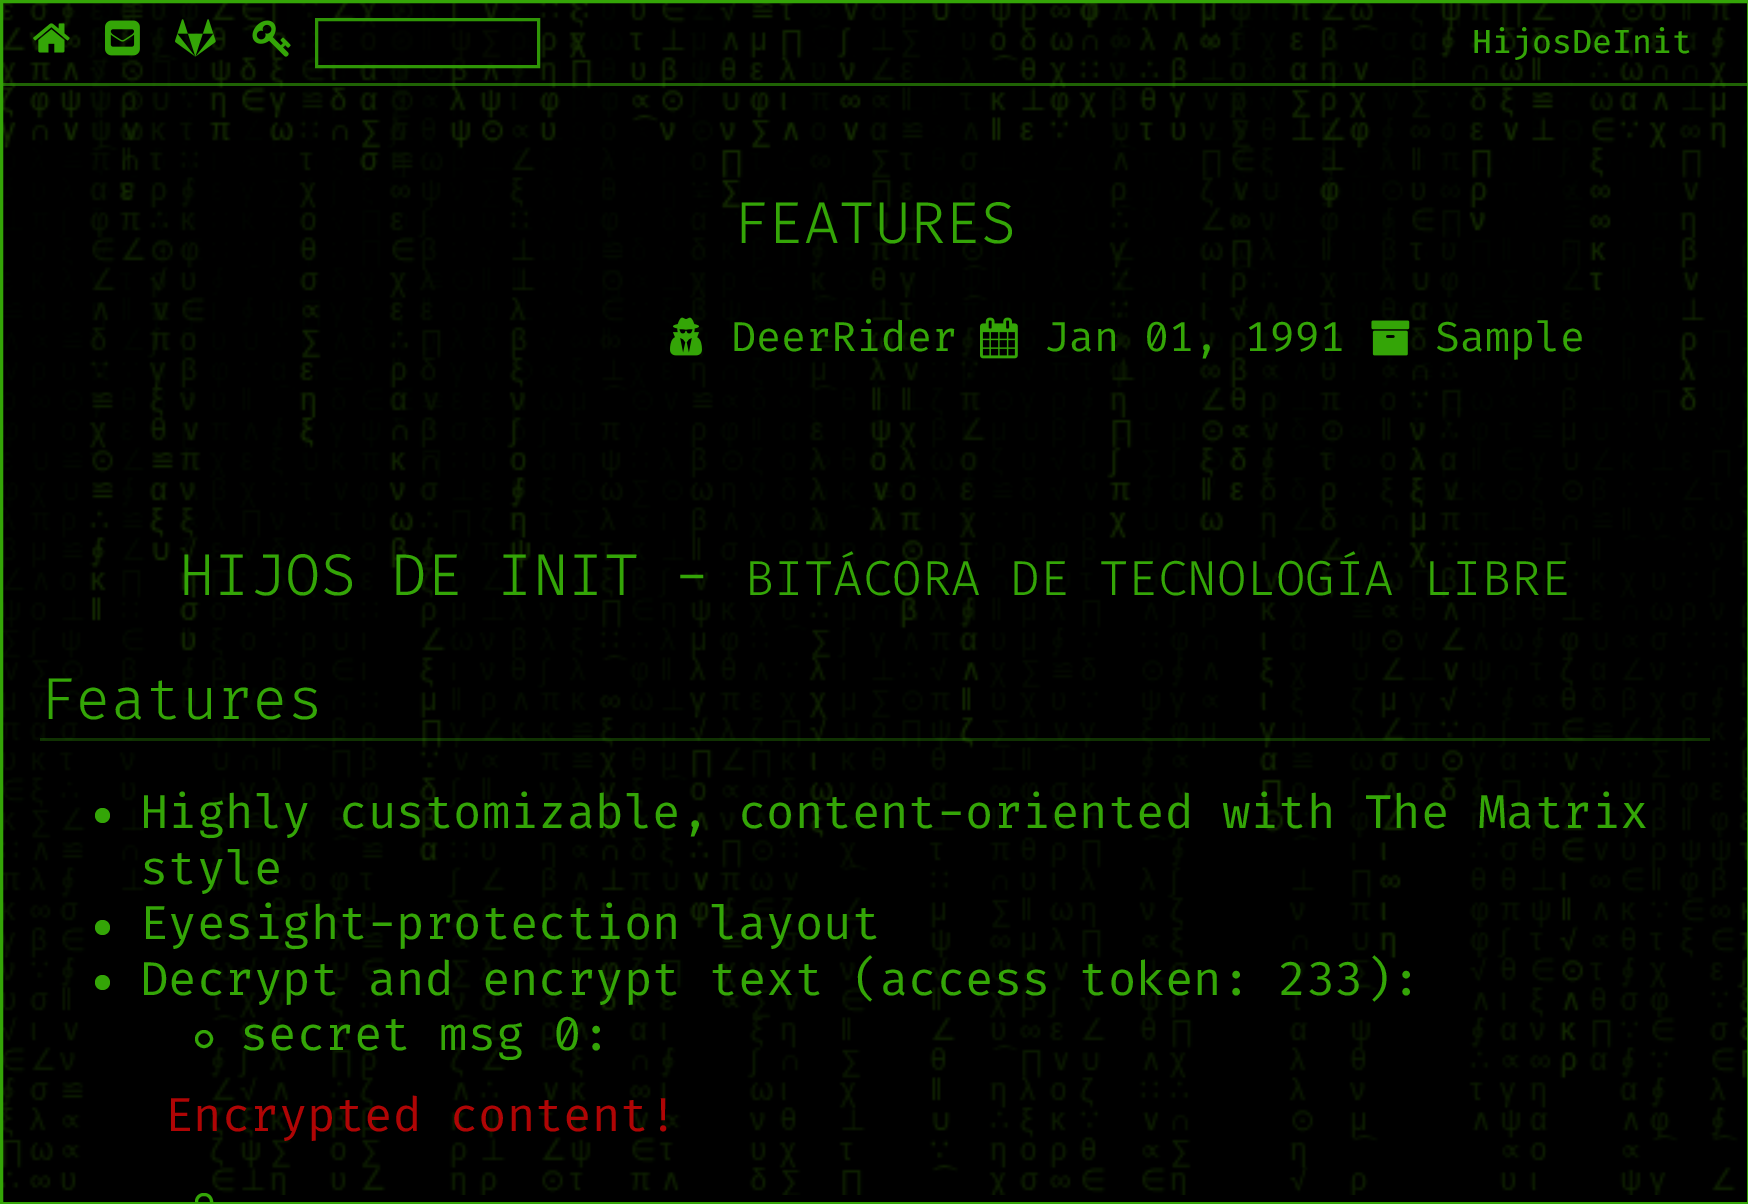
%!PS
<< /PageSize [1748 1204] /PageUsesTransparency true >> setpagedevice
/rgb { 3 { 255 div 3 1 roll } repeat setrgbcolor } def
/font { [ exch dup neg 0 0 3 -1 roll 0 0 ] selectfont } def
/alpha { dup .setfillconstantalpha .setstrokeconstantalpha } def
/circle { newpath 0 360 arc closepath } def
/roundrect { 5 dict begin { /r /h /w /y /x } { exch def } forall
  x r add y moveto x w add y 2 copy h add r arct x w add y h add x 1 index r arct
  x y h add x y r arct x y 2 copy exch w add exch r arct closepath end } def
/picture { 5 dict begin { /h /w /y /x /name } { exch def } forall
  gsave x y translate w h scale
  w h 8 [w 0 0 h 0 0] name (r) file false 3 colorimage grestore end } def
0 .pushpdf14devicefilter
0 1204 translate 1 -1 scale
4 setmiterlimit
0 0 0 rgb
0 0 1748 1204 rectfill
(img/1.rgb) 3 3 1744 1192 picture
52 165 7 rgb
3 setlinewidth
1.5 1.5 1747 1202 rectstroke
(img/2.rgb) 33 23 37 30 picture
(img/3.rgb) 105 20 35 36 picture
(img/4.rgb) 175 19 41 38 picture
(img/5.rgb) 252 20 39 37 picture
0.7 alpha
0 0 0 rgb
315 18 213 50 rectfill
0.9 alpha
52 165 7 rgb
316.5 19.5 222 47 rectstroke
0.6 alpha
3 83 1745 3 rectfill
1 alpha
(img/6.rgb) 670 317 32 39 picture
(img/7.rgb) 980 317 38 42 picture
(img/8.rgb) 1371 320 39 36 picture
0.3 alpha
40 738 1670 3 rectfill
1 alpha
102.5 815.5 7.5 circle fill
102.5 927.5 7.5 circle fill
102.5 982.5 7.5 circle fill
204 1039 7.5 circle stroke
196.5 1194.5 15 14 7 roundrect stroke
/FiraCode-Regular 32.5 font
1472 53 moveto (HijosDeInit) show
/FiraCode-Light 57.5 font
733 243 moveto (FEATURES) show
/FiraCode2-Regular 40.75 font
[
  [(DeerRider) 731 351]
  [(Jan 01, 1991) 1044 351]
  [(Sample) 1435 351]
] { aload pop moveto show } forall
/FiraCode-Light 57.5 font
179 595 moveto (HIJOS DE INIT -) show
/FiraCode-Light 47.9 font
745 595 moveto (BITÁCORA DE TECNOLOGÍA LIBRE) show
/FiraCode-Light 57.5 font
40 719 moveto (Features) show
/FiraCode2-Regular 46.25 font
[
  [(Highly customizable, content-oriented with The Matrix) 140 828]
  [(style) 140 884]
  [(Eyesight-protection layout) 140 939]
  [(Decrypt and encrypt text \(access token: 233\):) 140 995]
  [(secret msg 0:) 240 1050]
] { aload pop moveto show } forall
175 5 5 rgb
165 1131 moveto (Encrypted content!) show
.poppdf14devicefilter showpage
